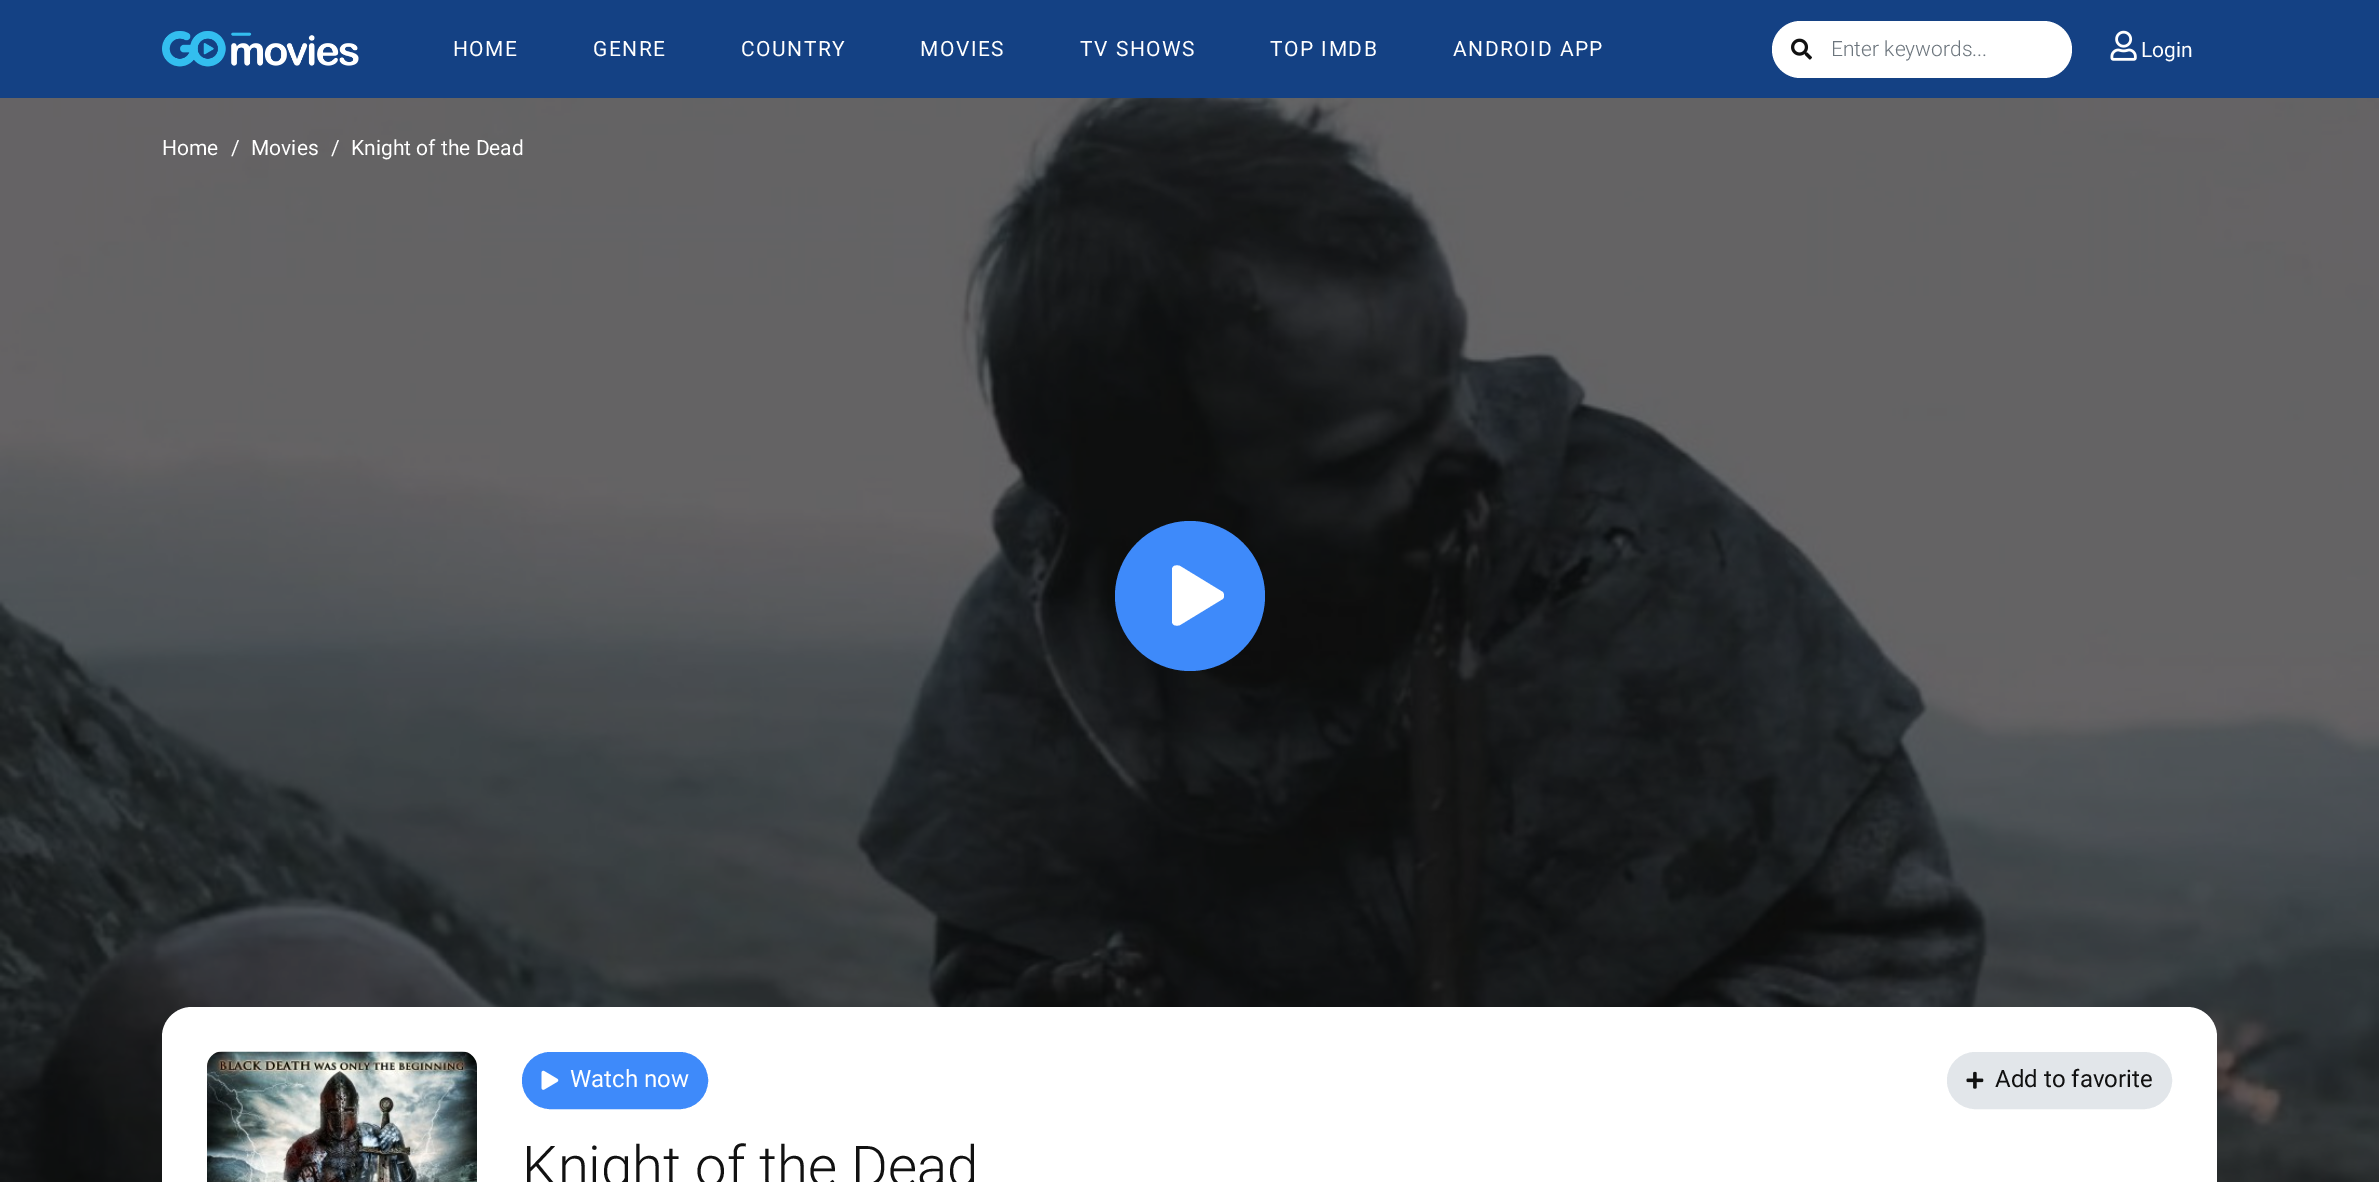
%!PS
<< /PageSize [2379 1182] >> setpagedevice
/rgb { 3 { 255 div 3 1 roll } repeat setrgbcolor } def
/font { [ exch dup neg 0 0 3 -1 roll 0 0 ] selectfont } def
/circle { newpath 0 360 arc closepath } def
/roundrect { 5 dict begin { /r /h /w /y /x } { exch def } forall
  x r add y moveto x w add y 2 copy h add r arct x w add y h add x 1 index r arct
  x y h add x y r arct x y 2 copy exch w add exch r arct closepath end } def
/picture { 5 dict begin { /h /w /y /x /name } { exch def } forall
  gsave x y translate w h scale
  w h 8 [w 0 0 h 0 0] name (r) file false 3 colorimage grestore end } def
0 1182 translate 1 -1 scale
4 setmiterlimit
255 255 255 rgb
0 0 2379 1182 rectfill
20 65 132 rgb
0 0 2379 98 rectfill
(img/1.rgb) 162 31 197 36 picture
255 255 255 rgb
1772 21 300 57 28.5 roundrect fill
(img/2.rgb) 1791 38 21 22 picture
(img/3.rgb) 2110 30 27 31 picture
(img/4.rgb) 0 98 2379 1084 picture
62 138 250 rgb
1190 596 75 circle fill
255 255 255 rgb
1221 591 moveto 1223 592 1224 593 1224 596 curveto 1224 598 1223 599 1221 600 curveto 1180 625 lineto 1178 626 1176 626 1174 625 curveto 1172 624 1172 622 1172 620 curveto 1172 571 lineto 1172 569 1172 567 1174 566 curveto 1176 565 1178 565 1180 566 curveto closepath fill
162 1007 2055 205 30 roundrect fill
(img/5.rgb) 207 1051 270 131 picture
62 138 250 rgb
523 1053 184 55 27.5 roundrect gsave fill grestore
2 setlinewidth
stroke
(img/6.rgb) 541 1070 18 20 picture
226 230 234 rgb
1948 1053 223 55 27.5 roundrect gsave fill grestore
stroke
(img/7.rgb) 1966 1071 18 18 picture
/Roboto-Regular 21 font
255 255 255 rgb
453 56 moveto 1.5 0 (HOME) ashow
593 56 moveto 1.5 0 (GENRE) ashow
741 56 moveto 1.5 0 (COUNTRY) ashow
920 56 moveto 1.5 0 (MOVIES) ashow
1080 56 moveto 1.5 0 (TV SHOWS) ashow
1270 56 moveto 1.5 0 (TOP IMDB) ashow
1453 56 moveto 1.5 0 (ANDROID APP) ashow
/Roboto-Light 21 font
108 117 125 rgb
1831 56 moveto (Enter keywords...) show
/Roboto-Regular 21 font
255 255 255 rgb
[
  [(Login) 2141 57]
  [(Home) 162 155]
  [(/) 231 155]
  [(Movies) 251 155]
  [(/) 331 155]
  [(Knight of the Dead) 351 155]
] { aload pop moveto show } forall
/Roboto-Regular 24 font
570 1087 moveto (Watch now) show
17 17 17 rgb
1995 1087 moveto (Add to favorite) show
/Roboto-Light 56.25 font
522 1186 moveto (Knight of the Dead) show
showpage
